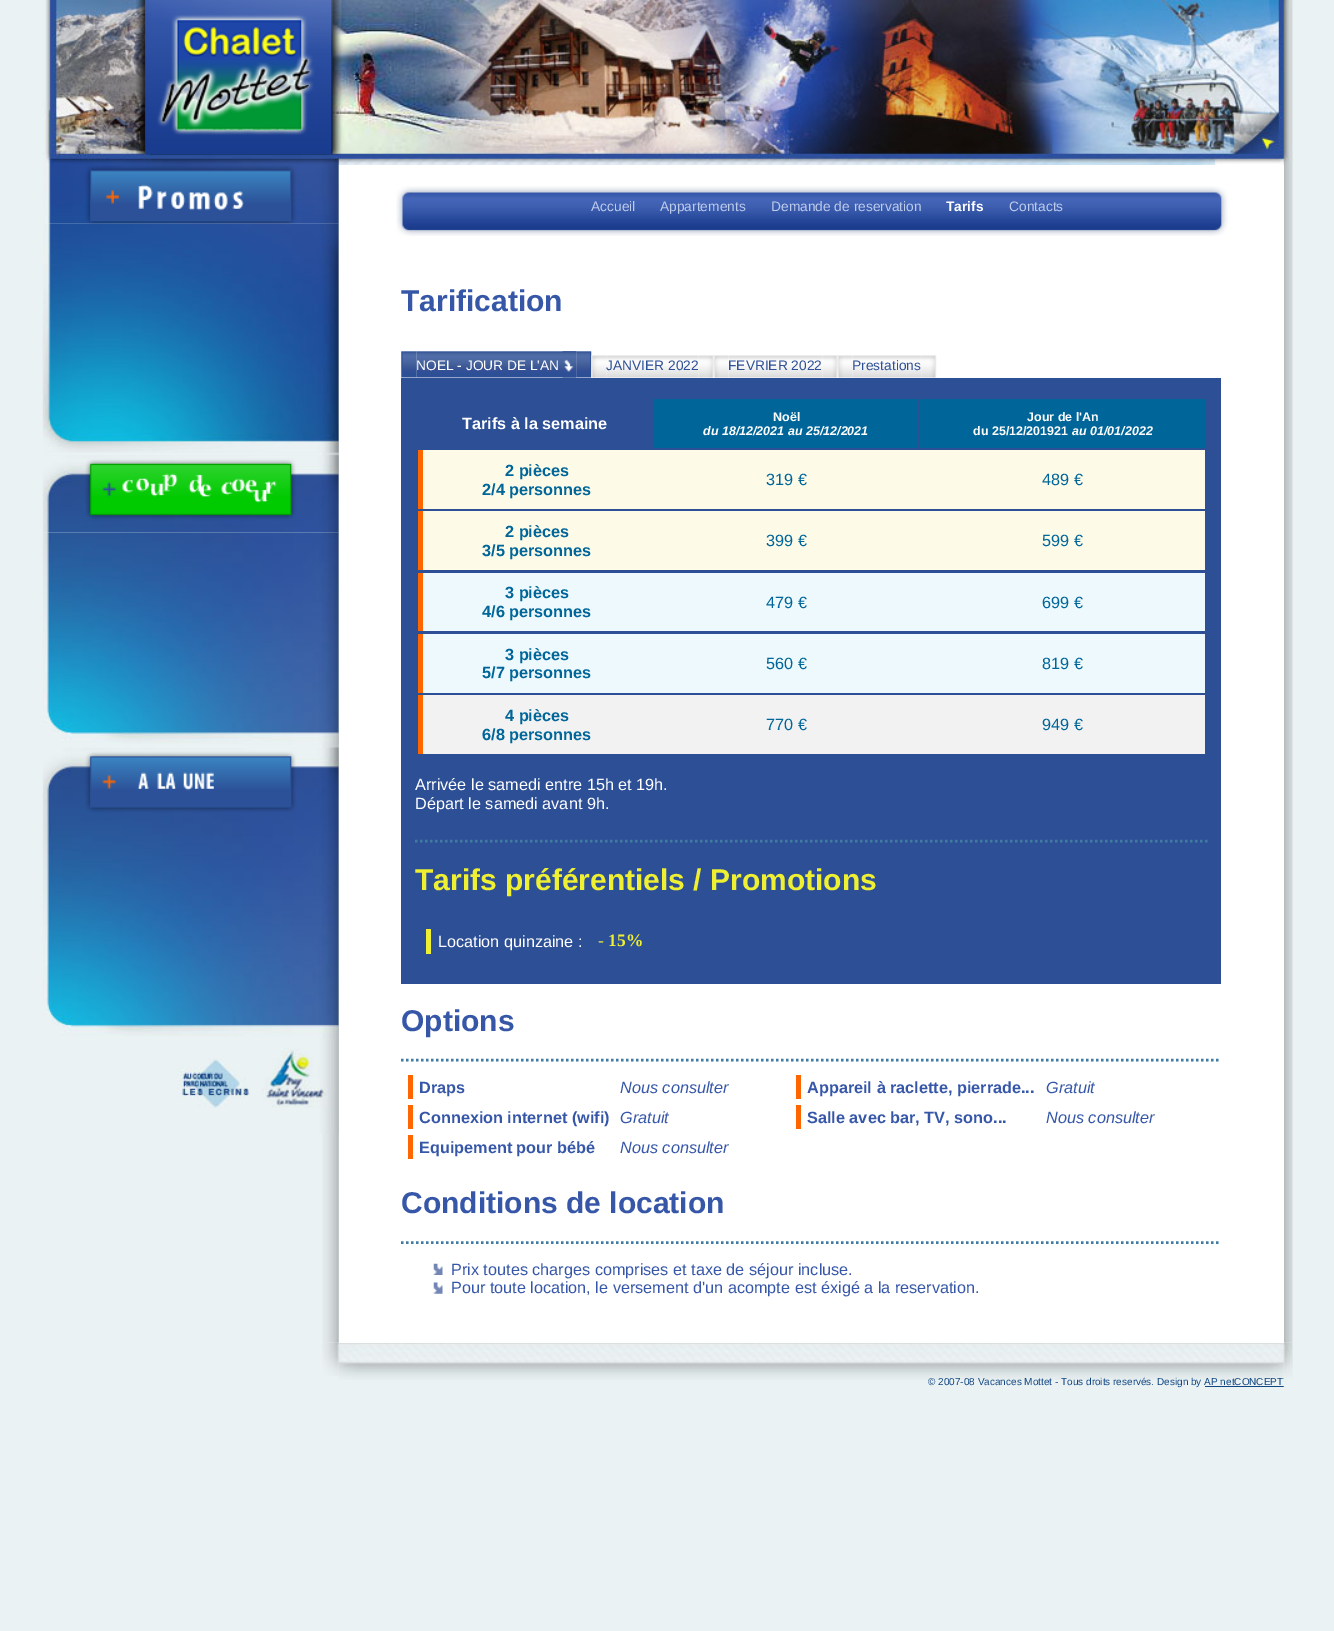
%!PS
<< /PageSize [1334 1631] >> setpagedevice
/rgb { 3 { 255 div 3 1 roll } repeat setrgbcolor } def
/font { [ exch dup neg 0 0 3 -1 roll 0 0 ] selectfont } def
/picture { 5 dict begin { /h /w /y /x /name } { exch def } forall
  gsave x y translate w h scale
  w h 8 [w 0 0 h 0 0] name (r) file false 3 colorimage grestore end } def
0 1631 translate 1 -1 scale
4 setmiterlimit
234 242 244 rgb
0 0 1334 1631 rectfill
(img/1.rgb) 42 0 1251 165 picture
(img/2.rgb) 136 0 206 154 picture
(img/30.rgb) 338 1342 946 38 picture
(img/29.rgb) 322 1342 17 34 picture
(img/3.rgb) 322 165 17 1178 picture
(img/5.rgb) 42 223 297 230 picture
(img/4.rgb) 43 165 296 59 picture
(img/7.rgb) 42 532 297 213 picture
(img/6.rgb) 42 455 297 78 picture
(img/8.rgb) 42 747 297 78 picture
(img/9.rgb) 42 825 297 212 picture
(img/10.rgb) 177 1057 73 51 picture
(img/11.rgb) 262 1038 77 96 picture
(img/28.rgb) 1284 165 9 1178 picture
16 70 130 rgb
1205 1386 79 1 rectfill
/LiberationSans-Regular 10 font
928 1385 moveto (© 2007-08 Vacances Mottet - Tous droits reservés. Design by AP netCONCEPT) show
(img/31.rgb) 1283 1342 10 45 picture
255 255 255 rgb
339 165 945 1178 rectfill
65 123 163 rgb
2.5 setlinewidth
[2.5 2.5] 0 setdash
401 1242.5 moveto 1221 1242.5 lineto stroke
401 1060 moveto 1221 1060 lineto stroke
45 79 150 rgb
401 378 820 606 rectfill
65 123 163 rgb
415 841 moveto 1207.5 841 lineto stroke
/LiberationSans-Regular 16.25 font
54 87 168 rgb
451 1293 moveto (Pour toute location, le versement d'un acompte est éxigé a la reservation.) show
451 1275 moveto (Prix toutes charges comprises et taxe de séjour incluse.) show
/LiberationSans-Bold 30 font
401 1213 moveto (Conditions de location) show
/LiberationSans-Italic 16.25 font
1046 1123 moveto (Nous consulter) show
/LiberationSans-Bold 16.25 font
807 1123 moveto (Salle avec bar, TV, sono...) show
/LiberationSans-Italic 16.25 font
1046 1093 moveto (Gratuit) show
/LiberationSans-Bold 16.25 font
807 1093 moveto (Appareil à raclette, pierrade...) show
/LiberationSans-Italic 16.25 font
620 1153 moveto (Nous consulter) show
/LiberationSans-Bold 16.25 font
419 1153 moveto (Equipement pour bébé) show
/LiberationSans-Italic 16.25 font
620 1123 moveto (Gratuit) show
/LiberationSans-Bold 16.25 font
419 1123 moveto (Connexion internet \(wifi\)) show
/LiberationSans-Italic 16.25 font
620 1093 moveto (Nous consulter) show
/LiberationSans-Bold 16.25 font
419 1093 moveto (Draps) show
/LiberationSans-Bold 30 font
401 1031 moveto (Options) show
/LiberationSerif-Bold 17.5 font
239 240 50 rgb
598 946 moveto (- 15%) show
/LiberationSans-Regular 16.25 font
255 255 255 rgb
438 947 moveto (Location quinzaine :) show
/LiberationSans-Bold 30 font
239 240 50 rgb
415 890 moveto (Tarifs préférentiels / Promotions) show
/LiberationSans-Regular 16.25 font
255 255 255 rgb
415 809 moveto (Départ le samedi avant 9h.) show
415 790 moveto (Arrivée le samedi entre 15h et 19h.) show
242 242 242 rgb
423 695 782 59 rectfill
0 102 153 rgb
1042 730 moveto (949 €) show
766 730 moveto (770 €) show
/LiberationSans-Bold 16.25 font
482 740 moveto (6/8 personnes) show
505 721 moveto (4 pièces) show
237 249 252 rgb
423 634 782 59 rectfill
/LiberationSans-Regular 16.25 font
0 102 153 rgb
1042 669 moveto (819 €) show
766 669 moveto (560 €) show
/LiberationSans-Bold 16.25 font
482 678 moveto (5/7 personnes) show
505 660 moveto (3 pièces) show
237 249 252 rgb
423 573 782 58 rectfill
/LiberationSans-Regular 16.25 font
0 102 153 rgb
1042 608 moveto (699 €) show
766 608 moveto (479 €) show
/LiberationSans-Bold 16.25 font
482 617 moveto (4/6 personnes) show
505 598 moveto (3 pièces) show
253 250 232 rgb
423 511 782 59 rectfill
/LiberationSans-Regular 16.25 font
0 102 153 rgb
1042 546 moveto (599 €) show
766 546 moveto (399 €) show
/LiberationSans-Bold 16.25 font
482 556 moveto (3/5 personnes) show
505 537 moveto (2 pièces) show
253 250 232 rgb
423 450 782 59 rectfill
/LiberationSans-Regular 16.25 font
0 102 153 rgb
1042 485 moveto (489 €) show
766 485 moveto (319 €) show
/LiberationSans-Bold 16.25 font
482 495 moveto (2/4 personnes) show
505 476 moveto (2 pièces) show
920 399 285 49 rectfill
/LiberationSans-BoldItalic 12.5 font
255 255 255 rgb
1072 435 moveto (au 01/01/2022) show
/LiberationSans-Bold 12.5 font
973 435 moveto (du 25/12/201921) show
1027 421 moveto (Jour de l'An) show
0 102 153 rgb
654 399 264 49 rectfill
/LiberationSans-BoldItalic 12.5 font
255 255 255 rgb
703 435 moveto (du 18/12/2021 au 25/12/2021) show
/LiberationSans-Bold 12.5 font
773 421 moveto (Noël) show
/LiberationSans-Bold 16.25 font
462 429 moveto (Tarifs à la semaine) show
/LiberationSans-Bold 30 font
54 87 168 rgb
401 311 moveto (Tarification) show
(img/12.rgb) 396 186 832 50 picture
/LiberationSans-Regular 13.75 font
189 203 236 rgb
1009 211 moveto (Contacts) show
/LiberationSans-Bold 13.75 font
255 255 255 rgb
946 211 moveto (Tarifs) show
/LiberationSans-Regular 13.75 font
189 203 236 rgb
[
  [(Demande de reservation) 771 211]
  [(Appartements) 660 211]
  [(Accueil) 591 211]
] { aload pop moveto show } forall
(img/21.rgb) 729 355 94 23 picture
(img/22.rgb) 822 355 16 23 picture
(img/23.rgb) 837 355 16 23 picture
(img/24.rgb) 852 355 70 23 picture
(img/25.rgb) 921 355 16 23 picture
45 79 150 rgb
852 370 moveto (Prestations) show
728 370 moveto (FEVRIER 2022) show
(img/20.rgb) 714 355 15 23 picture
(img/19.rgb) 699 355 15 23 picture
(img/13.rgb) 401 351 16 27 picture
(img/14.rgb) 416 351 161 27 picture
(img/15.rgb) 562 351 15 27 picture
(img/16.rgb) 576 351 16 27 picture
(img/17.rgb) 591 355 16 23 picture
(img/18.rgb) 606 355 93 23 picture
606 370 moveto (JANVIER 2022) show
255 255 255 rgb
416 370 moveto (NOEL - JOUR DE L'AN) show
(img/27.rgb) 433 1282 10 12 picture
(img/26.rgb) 433 1263 10 12 picture
[
  [796 1105 5 24 255 102 0]
  [796 1075 5 24 255 102 0]
  [408 1135 5 24 255 102 0]
  [408 1105 5 24 255 102 0]
  [408 1075 5 24 255 102 0]
  [426 929 5 25 239 240 50]
  [418 695 5 59 255 102 0]
  [418 634 5 59 255 102 0]
  [418 573 5 58 255 102 0]
  [418 511 5 59 255 102 0]
  [418 450 5 59 255 102 0]
] { aload pop rgb rectfill } forall
showpage
